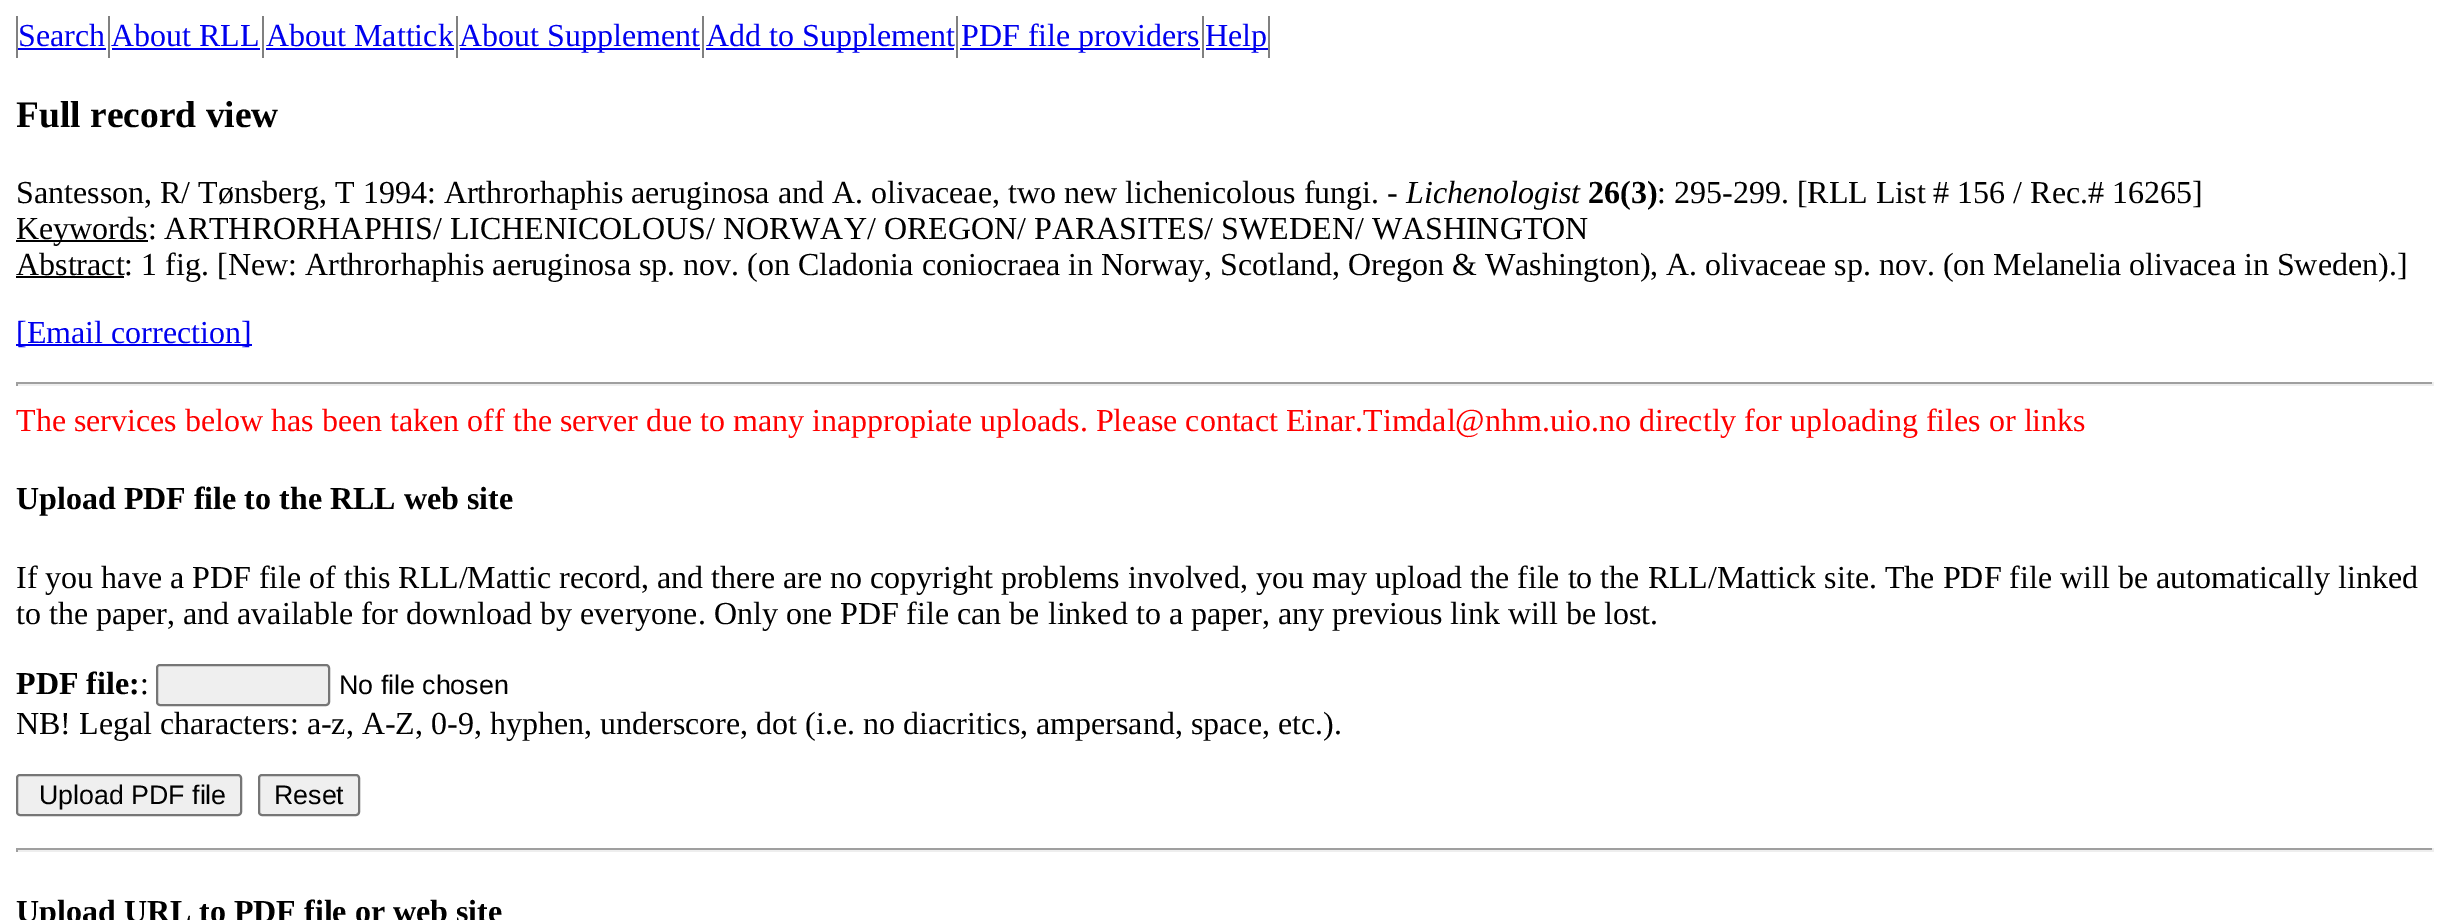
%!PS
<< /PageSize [2449 920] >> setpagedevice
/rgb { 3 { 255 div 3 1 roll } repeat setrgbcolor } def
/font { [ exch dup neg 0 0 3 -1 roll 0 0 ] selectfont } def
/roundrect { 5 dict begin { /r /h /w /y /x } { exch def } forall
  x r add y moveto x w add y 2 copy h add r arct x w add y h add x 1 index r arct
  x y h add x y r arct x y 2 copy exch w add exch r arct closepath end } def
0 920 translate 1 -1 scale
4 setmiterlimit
255 255 255 rgb
0 0 2449 920 rectfill
[
  [16 16 2 42 128 128 128]
  [18 48 88 2 0 0 238]
  [108 16 2 42 128 128 128]
  [112 48 148 2 0 0 238]
  [262 16 2 42 128 128 128]
  [266 48 188 2 0 0 238]
  [456 16 2 42 128 128 128]
  [460 48 240 2 0 0 238]
  [702 16 2 42 128 128 128]
  [706 48 248 2 0 0 238]
  [956 16 2 42 128 128 128]
  [960 48 240 2 0 0 238]
  [1268 16 2 42 128 128 128]
  [1202 16 2 42 128 128 128]
  [1206 48 62 2 0 0 238]
  [16 240 132 2 0 0 0]
  [16 276 108 2 0 0 0]
  [16 344 236 2 0 0 238]
  [16 382 2418 2 159 159 159]
  [2432 382 2 4 238 238 238]
  [16 384 2418 2 238 238 238]
  [16 382 2 4 159 159 159]
] { aload pop rgb rectfill } forall
239 239 239 rgb
157 665 172 40 3 roundrect gsave fill grestore
118 118 118 rgb
2 setlinewidth
stroke
239 239 239 rgb
17 775 224 40 3 roundrect gsave fill grestore
118 118 118 rgb
stroke
239 239 239 rgb
259 775 100 40 3 roundrect gsave fill grestore
118 118 118 rgb
stroke
[
  [16 848 2418 2 159 159 159]
  [2432 848 2 4 238 238 238]
  [16 850 2418 2 238 238 238]
  [16 848 2 4 159 159 159]
] { aload pop rgb rectfill } forall
/LiberationSerif-Regular 32 font
0 0 238 rgb
[
  [(Search) 18 46]
  [(About RLL) 111 46]
  [(About Mattick) 266 46]
  [(About Supplement) 459 46]
  [(Add to Supplement) 706 46]
  [(PDF file providers) 961 46]
  [(Help) 1205 46]
] { aload pop moveto show } forall
/LiberationSerif-Bold 37.5 font
0 0 0 rgb
16 127 moveto (Full record view) show
/LiberationSerif-Regular 32 font
16 203 moveto (Santesson, R/ Tønsberg, T 1994: Arthrorhaphis aeruginosa and A. olivaceae, two new lichenicolous fungi. -) show
/LiberationSerif-Italic 32 font
1406 203 moveto (Lichenologist) show
/LiberationSerif-Bold 32 font
1588 203 moveto (26\(3\)) show
/LiberationSerif-Regular 32 font
[
  [(: 295-299. [RLL List # 156 / Rec.# 16265]) 1657 203]
  [(Keywords: ARTHRORHAPHIS/ LICHENICOLOUS/ NORWAY/ OREGON/ PARASITES/ SWEDEN/ WASHINGTON) 16 239]
  [(Abstract: 1 fig. [New: Arthrorhaphis aeruginosa sp. nov. \(on Cladonia coniocraea in Norway, Scotland, Oregon & Washington\), A. olivaceae sp. nov. \(on Melanelia olivacea in Sweden\).]) 16 275]
] { aload pop moveto show } forall
0 0 238 rgb
16 343 moveto ([Email correction]) show
255 0 0 rgb
16 431 moveto (The services below has been taken off the server due to many inappropiate uploads. Please contact Einar.Timdal@nhm.uio.no directly for uploading files or links) show
/LiberationSerif-Bold 32 font
0 0 0 rgb
16 509 moveto (Upload PDF file to the RLL web site) show
/LiberationSerif-Regular 32 font
16 588 moveto (If you have a PDF file of this RLL/Mattic record, and there are no copyright problems involved, you may upload the file to the RLL/Mattick site. The PDF file will be automatically linked) show
16 624 moveto (to the paper, and available for download by everyone. Only one PDF file can be linked to a paper, any previous link will be lost.) show
/LiberationSerif-Bold 32 font
16 694 moveto (PDF file:) show
/LiberationSerif-Regular 32 font
140 694 moveto (:) show
/LiberationSans-Regular 26.75 font
339 694 moveto (No file chosen) show
/LiberationSerif-Regular 32 font
16 734 moveto (NB! Legal characters: a-z, A-Z, 0-9, hyphen, underscore, dot \(i.e. no diacritics, ampersand, space, etc.\).) show
/LiberationSans-Regular 26.75 font
39 804 moveto (Upload PDF file) show
274 804 moveto (Reset) show
/LiberationSerif-Bold 32 font
16 922 moveto (Upload URL to PDF file or web site) show
showpage
